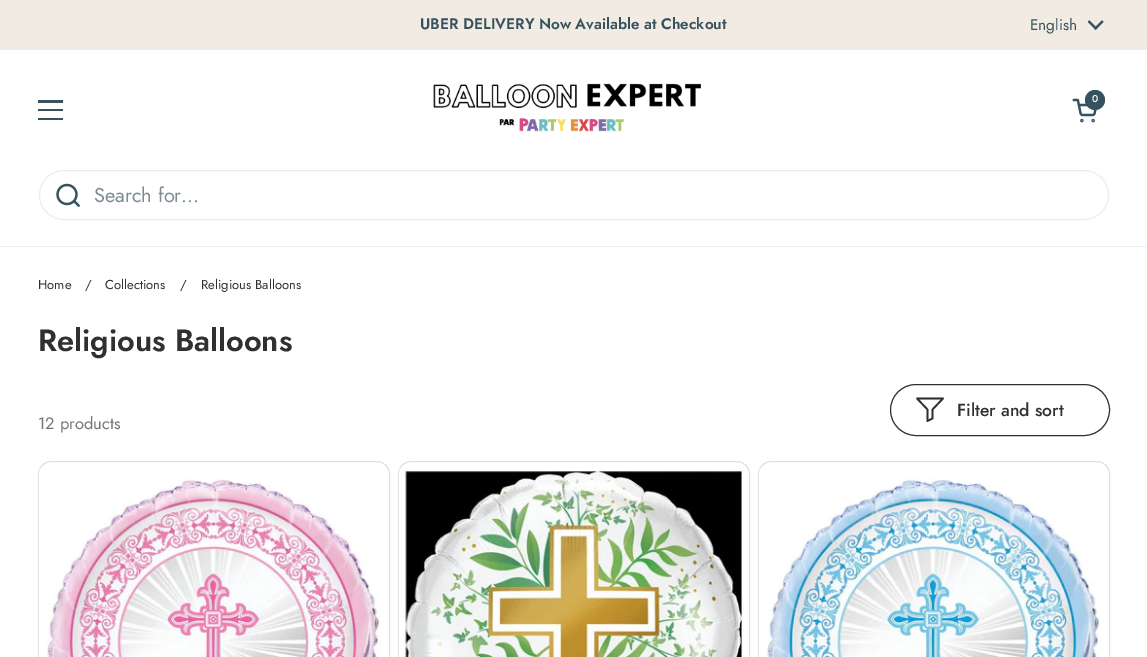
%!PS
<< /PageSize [1147 657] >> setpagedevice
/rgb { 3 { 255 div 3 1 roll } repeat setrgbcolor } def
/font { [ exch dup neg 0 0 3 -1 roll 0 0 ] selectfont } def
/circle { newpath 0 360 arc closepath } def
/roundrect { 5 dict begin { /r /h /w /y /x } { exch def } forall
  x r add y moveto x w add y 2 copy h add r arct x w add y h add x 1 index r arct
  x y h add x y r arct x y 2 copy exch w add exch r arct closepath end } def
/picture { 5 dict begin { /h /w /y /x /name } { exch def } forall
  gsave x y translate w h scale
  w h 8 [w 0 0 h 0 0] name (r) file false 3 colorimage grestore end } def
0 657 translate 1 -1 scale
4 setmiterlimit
255 255 255 rgb
0 0 1147 657 rectfill
242 235 227 rgb
0 0 1147 50 rectfill
(img/1.rgb) 1088 20 16 10 picture
(img/2.rgb) 433 83 268 49 picture
(img/3.rgb) 1072 98 25 25 picture
52 83 92 rgb
1095 100 10 circle fill
[
  [38 100 25 3 52 83 92]
  [38 109 25 2 52 83 92]
  [38 118 25 2 52 83 92]
  [0 246 1147 1 235 238 239]
] { aload pop rgb rectfill } forall
39.5 170.5 1069 49 24.5 roundrect stroke
(img/4.rgb) 56 183 24 24 picture
46 48 49 rgb
890.5 384.5 219 51 25.5 roundrect stroke
1.7 setlinewidth
1 setlinecap
1 setlinejoin
917 398.5 moveto 943 398.5 lineto 932.5 409.5 lineto 932.5 418.5 lineto 927.5 421 lineto 927.5 409.5 lineto closepath stroke
225 225 225 rgb
1 setlinewidth
0 setlinecap
0 setlinejoin
38.5 461.5 351 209 12.5 roundrect stroke
(img/5.rgb) 39 468 342 189 picture
398.5 461.5 351 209 12.5 roundrect stroke
(img/6.rgb) 399 468 345 189 picture
758.5 461.5 351 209 12.5 roundrect stroke
(img/7.rgb) 759 468 342 189 picture
/Jost-SemiBold 15.3 font
52 83 92 rgb
420 29 moveto (UBER DELIVERY Now Available at Checkout) show
/Jost-Regular 15.3 font
1030 30 moveto (English) show
/Jost-Medium 10 font
255 255 255 rgb
1092 102 moveto (0) show
/Jost-Regular 20 font
121 141 147 rgb
94 202 moveto (Search for...) show
/Jost-Regular 13 font
46 48 49 rgb
[
  [(Home) 38 289]
  [(/) 85 289]
  [(Collections) 105 289]
  [(/) 180 289]
  [(Religious Balloons) 201 289]
] { aload pop moveto show } forall
/Jost-SemiBold 30.75 font
38 351 moveto (Religious Balloons) show
/Jost-Medium 17.5 font
957 416 moveto (Filter and sort) show
/Jost-Regular 16.5 font
117 118 119 rgb
38 429 moveto (12 products) show
showpage
